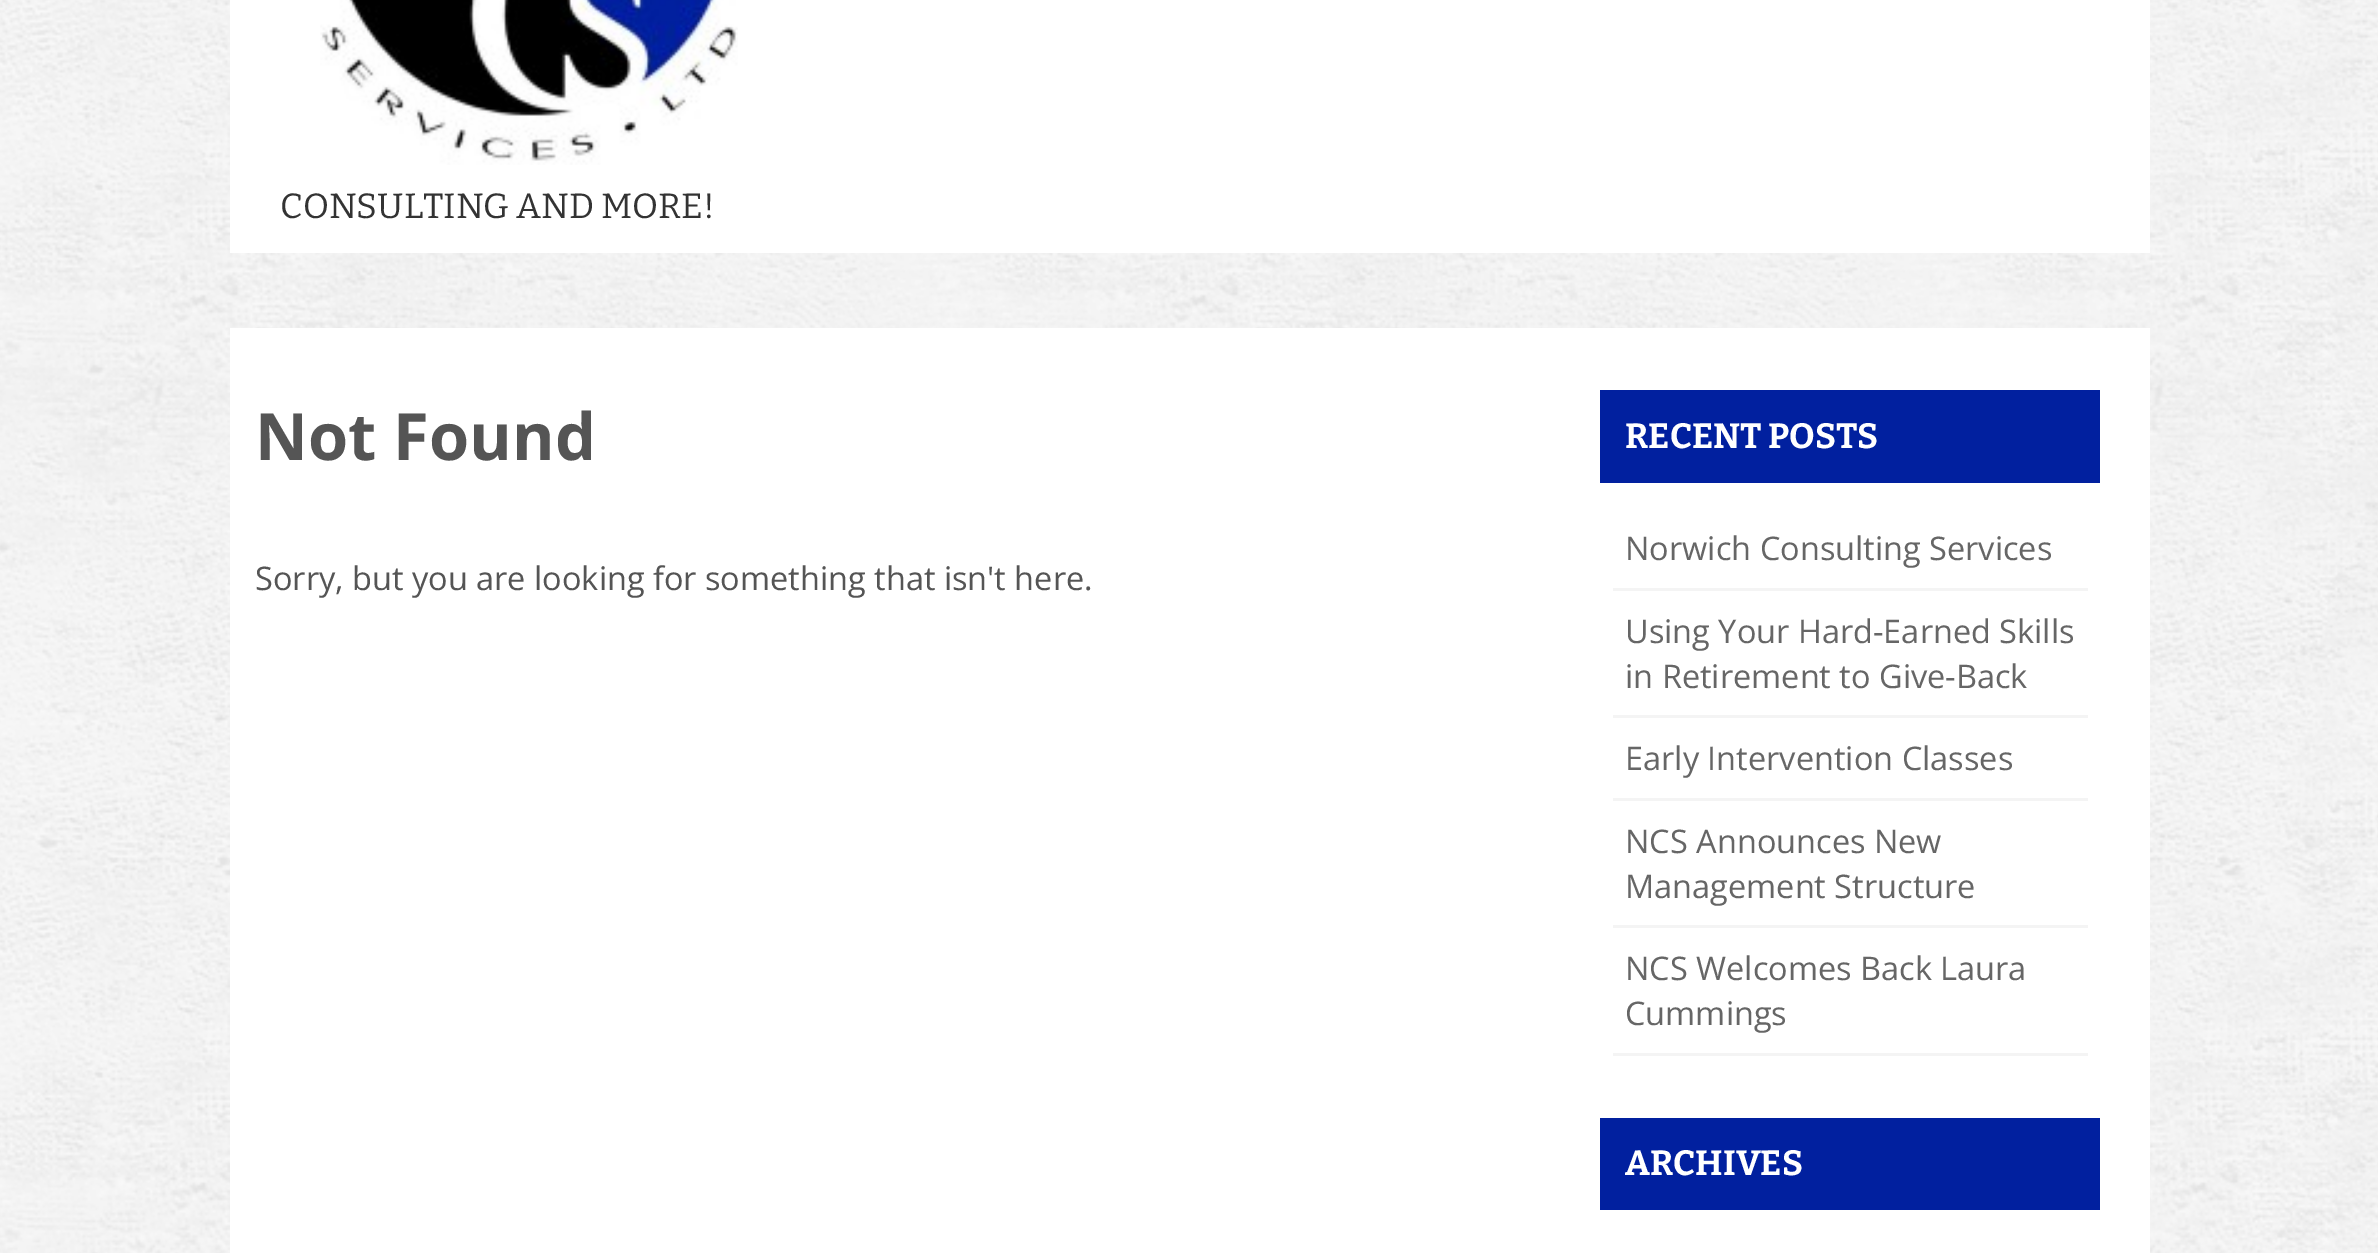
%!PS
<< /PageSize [2378 1253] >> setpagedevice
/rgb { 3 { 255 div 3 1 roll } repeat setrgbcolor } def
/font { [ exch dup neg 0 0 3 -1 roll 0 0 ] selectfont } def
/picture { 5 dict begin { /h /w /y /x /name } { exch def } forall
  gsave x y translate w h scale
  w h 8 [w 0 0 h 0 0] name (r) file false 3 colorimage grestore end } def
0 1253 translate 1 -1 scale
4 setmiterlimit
255 255 255 rgb
0 0 2378 1253 rectfill
(img/1.rgb) 0 0 2378 1253 picture
230 0 1920 253 rectfill
(img/2.rgb) 320 0 418 165 picture
[
  [230 328 1920 925 255 255 255]
  [1600 390 500 93 1 32 159]
  [1613 588 475 3 244 244 244]
  [1613 715 475 3 244 244 244]
  [1613 798 475 3 244 244 244]
  [1613 925 475 3 244 244 244]
  [1613 1053 475 3 244 244 244]
  [1600 1118 500 92 1 32 159]
] { aload pop rgb rectfill } forall
/Bitter-Regular 35 font
51 51 51 rgb
280 218 moveto (CONSULTING AND MORE!) show
/OpenSans-Bold 65 font
85 85 85 rgb
255 460 moveto (Not Found) show
/OpenSans-Regular 32.5 font
255 590 moveto (Sorry, but you are looking for something that isn't here.) show
/Bitter-Bold 35 font
255 255 255 rgb
1625 448 moveto (RECENT POSTS) show
/OpenSans-Regular 32.5 font
102 102 102 rgb
[
  [(Norwich Consulting Services) 1625 560]
  [(Using Your Hard-Earned Skills) 1625 643]
  [(in Retirement to Give-Back) 1625 688]
  [(Early Intervention Classes) 1625 770]
  [(NCS Announces New) 1625 853]
  [(Management Structure) 1625 898]
  [(NCS Welcomes Back Laura) 1625 980]
  [(Cummings) 1625 1025]
] { aload pop moveto show } forall
/Bitter-Bold 35 font
255 255 255 rgb
1625 1175 moveto (ARCHIVES) show
showpage
